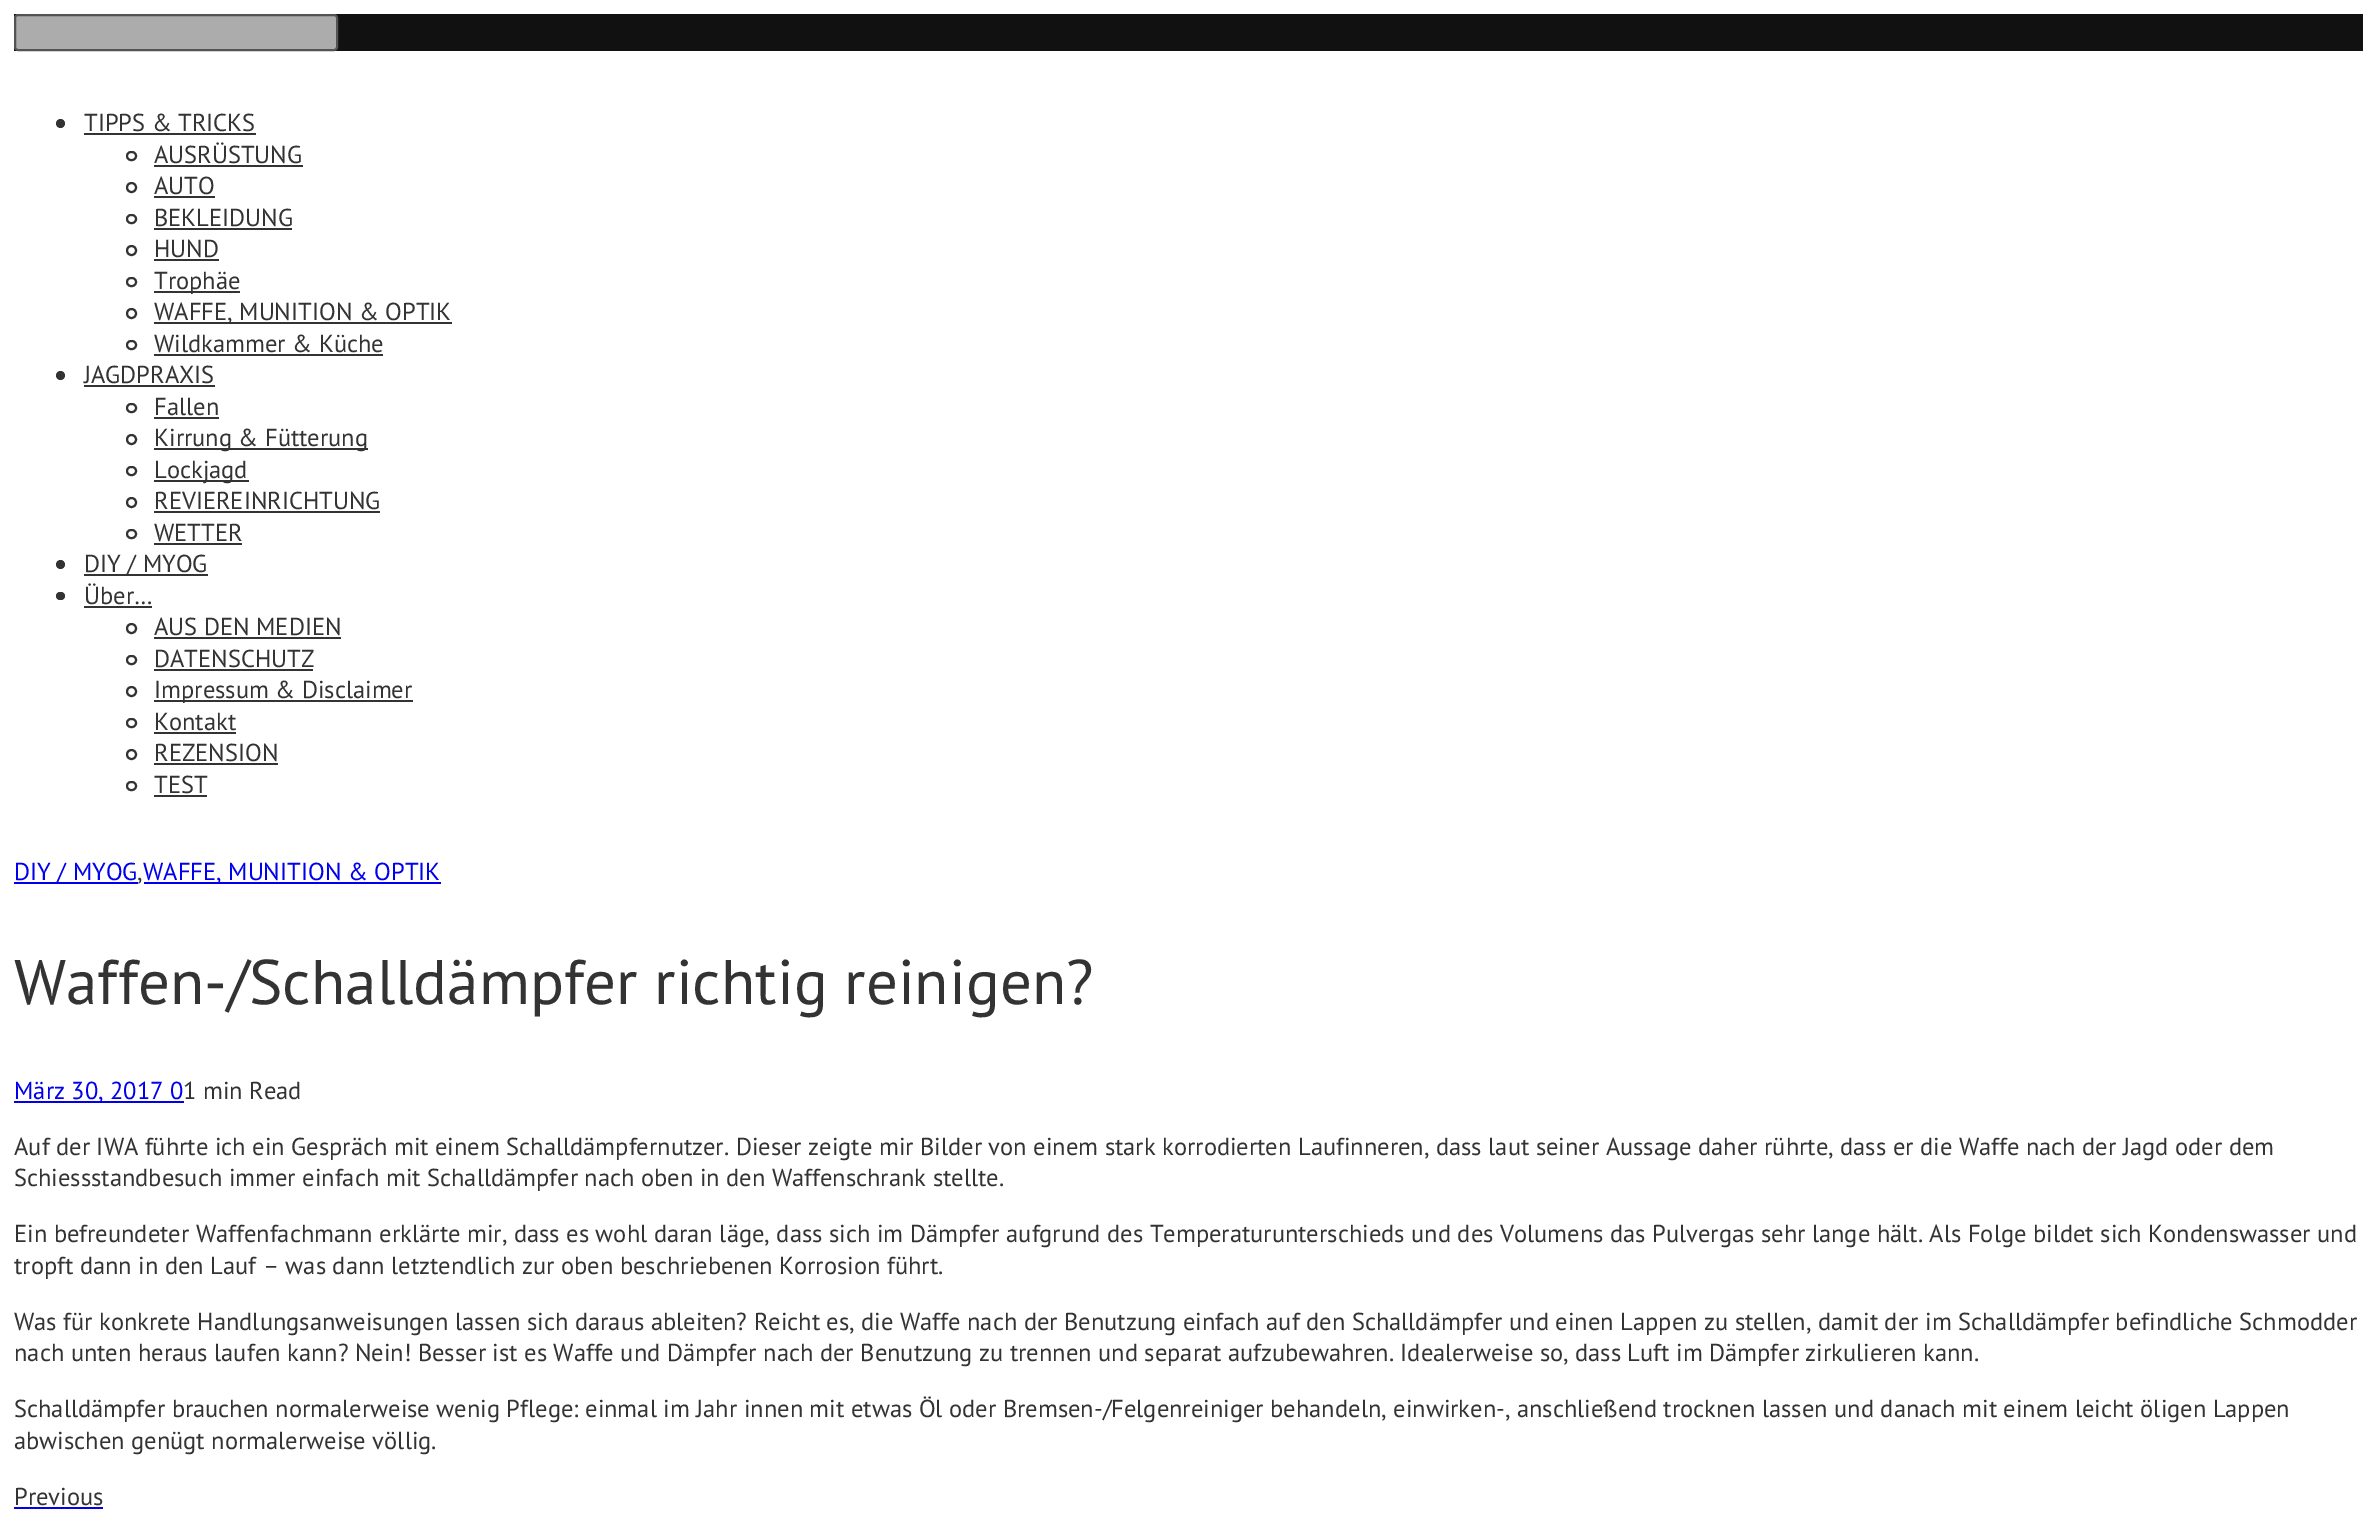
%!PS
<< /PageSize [2376 1530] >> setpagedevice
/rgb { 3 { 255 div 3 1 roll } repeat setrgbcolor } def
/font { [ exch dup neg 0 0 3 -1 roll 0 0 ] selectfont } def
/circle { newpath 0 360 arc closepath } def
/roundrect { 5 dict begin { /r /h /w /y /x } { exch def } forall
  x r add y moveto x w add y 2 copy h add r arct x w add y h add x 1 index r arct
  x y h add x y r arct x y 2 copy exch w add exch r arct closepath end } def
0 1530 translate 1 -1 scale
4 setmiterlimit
255 255 255 rgb
0 0 2376 1530 rectfill
17 17 17 rgb
14 14 2349 37 rectfill
172 172 172 rgb
15 15 322 35 3 roundrect gsave fill grestore
83 83 83 rgb
2 setlinewidth
stroke
51 51 51 rgb
60.5 123.5 4.5 circle fill
84 133 172 2 rectfill
127 152 9 8 4 roundrect stroke
154 165 149 2 rectfill
131.5 187.5 4.5 circle stroke
154 196 61 2 rectfill
127 215 9 8 4 roundrect stroke
154 228 138 2 rectfill
131.5 250.5 4.5 circle stroke
154 259 65 2 rectfill
127 278 9 8 4 roundrect stroke
154 291 86 2 rectfill
131.5 313.5 4.5 circle stroke
154 322 298 2 rectfill
127 341 9 8 4 roundrect stroke
154 354 229 2 rectfill
60.5 375.5 4.5 circle fill
84 385 131 2 rectfill
127 404 9 8 4 roundrect stroke
154 417 65 2 rectfill
131.5 439.5 4.5 circle stroke
154 448 214 2 rectfill
127 467 9 8 4 roundrect stroke
154 480 95 2 rectfill
131.5 502.5 4.5 circle stroke
154 511 226 2 rectfill
127 530 9 8 4 roundrect stroke
154 543 88 2 rectfill
60.5 564.5 4.5 circle fill
84 574 124 2 rectfill
56 592 9 8 4 roundrect fill
84 606 68 2 rectfill
131.5 628.5 4.5 circle stroke
154 637 187 2 rectfill
127 656 9 8 4 roundrect stroke
154 669 159 2 rectfill
131.5 691.5 4.5 circle stroke
154 700 259 2 rectfill
127 719 9 8 4 roundrect stroke
154 732 82 2 rectfill
131.5 754.5 4.5 circle stroke
154 763 124 2 rectfill
127 782 9 8 4 roundrect stroke
[
  [154 795 53 2 51 51 51]
  [14 882 124 2 0 0 238]
  [144 882 297 2 0 0 238]
  [14 1101 170 2 0 0 238]
  [14 1507 89 2 0 0 238]
] { aload pop rgb rectfill } forall
/PTSans-Regular 24.5 font
51 51 51 rgb
[
  [(TIPPS & TRICKS) 84 131]
  [(AUSRÜSTUNG) 154 163]
  [(AUTO) 154 194]
  [(BEKLEIDUNG) 154 226]
  [(HUND) 154 257]
  [(Trophäe) 154 289]
  [(WAFFE, MUNITION & OPTIK) 154 320]
  [(Wildkammer & Küche) 154 352]
  [(JAGDPRAXIS) 84 383]
  [(Fallen) 154 415]
  [(Kirrung & Fütterung) 154 446]
  [(Lockjagd) 154 478]
  [(REVIEREINRICHTUNG) 154 509]
  [(WETTER) 154 541]
  [(DIY / MYOG) 84 572]
  [(Über…) 84 604]
  [(AUS DEN MEDIEN) 154 635]
  [(DATENSCHUTZ) 154 667]
  [(Impressum & Disclaimer) 154 698]
  [(Kontakt) 154 730]
  [(REZENSION) 154 761]
  [(TEST) 154 793]
] { aload pop moveto show } forall
0 0 238 rgb
14 880 moveto (DIY / MYOG) show
51 51 51 rgb
137 880 moveto (,) show
0 0 238 rgb
143 880 moveto (WAFFE, MUNITION & OPTIK) show
/PTSans-Regular 63 font
51 51 51 rgb
14 1004 moveto (Waffen-/Schalldämpfer richtig reinigen?) show
/PTSans-Regular 24.5 font
0 0 238 rgb
14 1099 moveto (März 30, 2017 0) show
51 51 51 rgb
[
  [(1 min Read) 183 1099]
  [(Auf der IWA führte ich ein Gespräch mit einem Schalldämpfernutzer. Dieser zeigte mir Bilder von einem stark korrodierten Laufinneren, dass laut seiner Aussage daher rührte, dass er die Waffe nach der Jagd oder dem) 14 1155]
  [(Schiessstandbesuch immer einfach mit Schalldämpfer nach oben in den Waffenschrank stellte.) 14 1186]
  [(Ein befreundeter Waffenfachmann erklärte mir, dass es wohl daran läge, dass sich im Dämpfer aufgrund des Temperaturunterschieds und des Volumens das Pulvergas sehr lange hält. Als Folge bildet sich Kondenswasser und) 14 1242]
  [(tropft dann in den Lauf – was dann letztendlich zur oben beschriebenen Korrosion führt.) 14 1274]
  [(Was für konkrete Handlungsanweisungen lassen sich daraus ableiten? Reicht es, die Waffe nach der Benutzung einfach auf den Schalldämpfer und einen Lappen zu stellen, damit der im Schalldämpfer befindliche Schmodder) 14 1330]
  [(nach unten heraus laufen kann? Nein! Besser ist es Waffe und Dämpfer nach der Benutzung zu trennen und separat aufzubewahren. Idealerweise so, dass Luft im Dämpfer zirkulieren kann.) 14 1361]
  [(Schalldämpfer brauchen normalerweise wenig Pflege: einmal im Jahr innen mit etwas Öl oder Bremsen-/Felgenreiniger behandeln, einwirken-, anschließend trocknen lassen und danach mit einem leicht öligen Lappen) 14 1417]
  [(abwischen genügt normalerweise völlig.) 14 1449]
  [(Previous) 14 1505]
] { aload pop moveto show } forall
showpage
